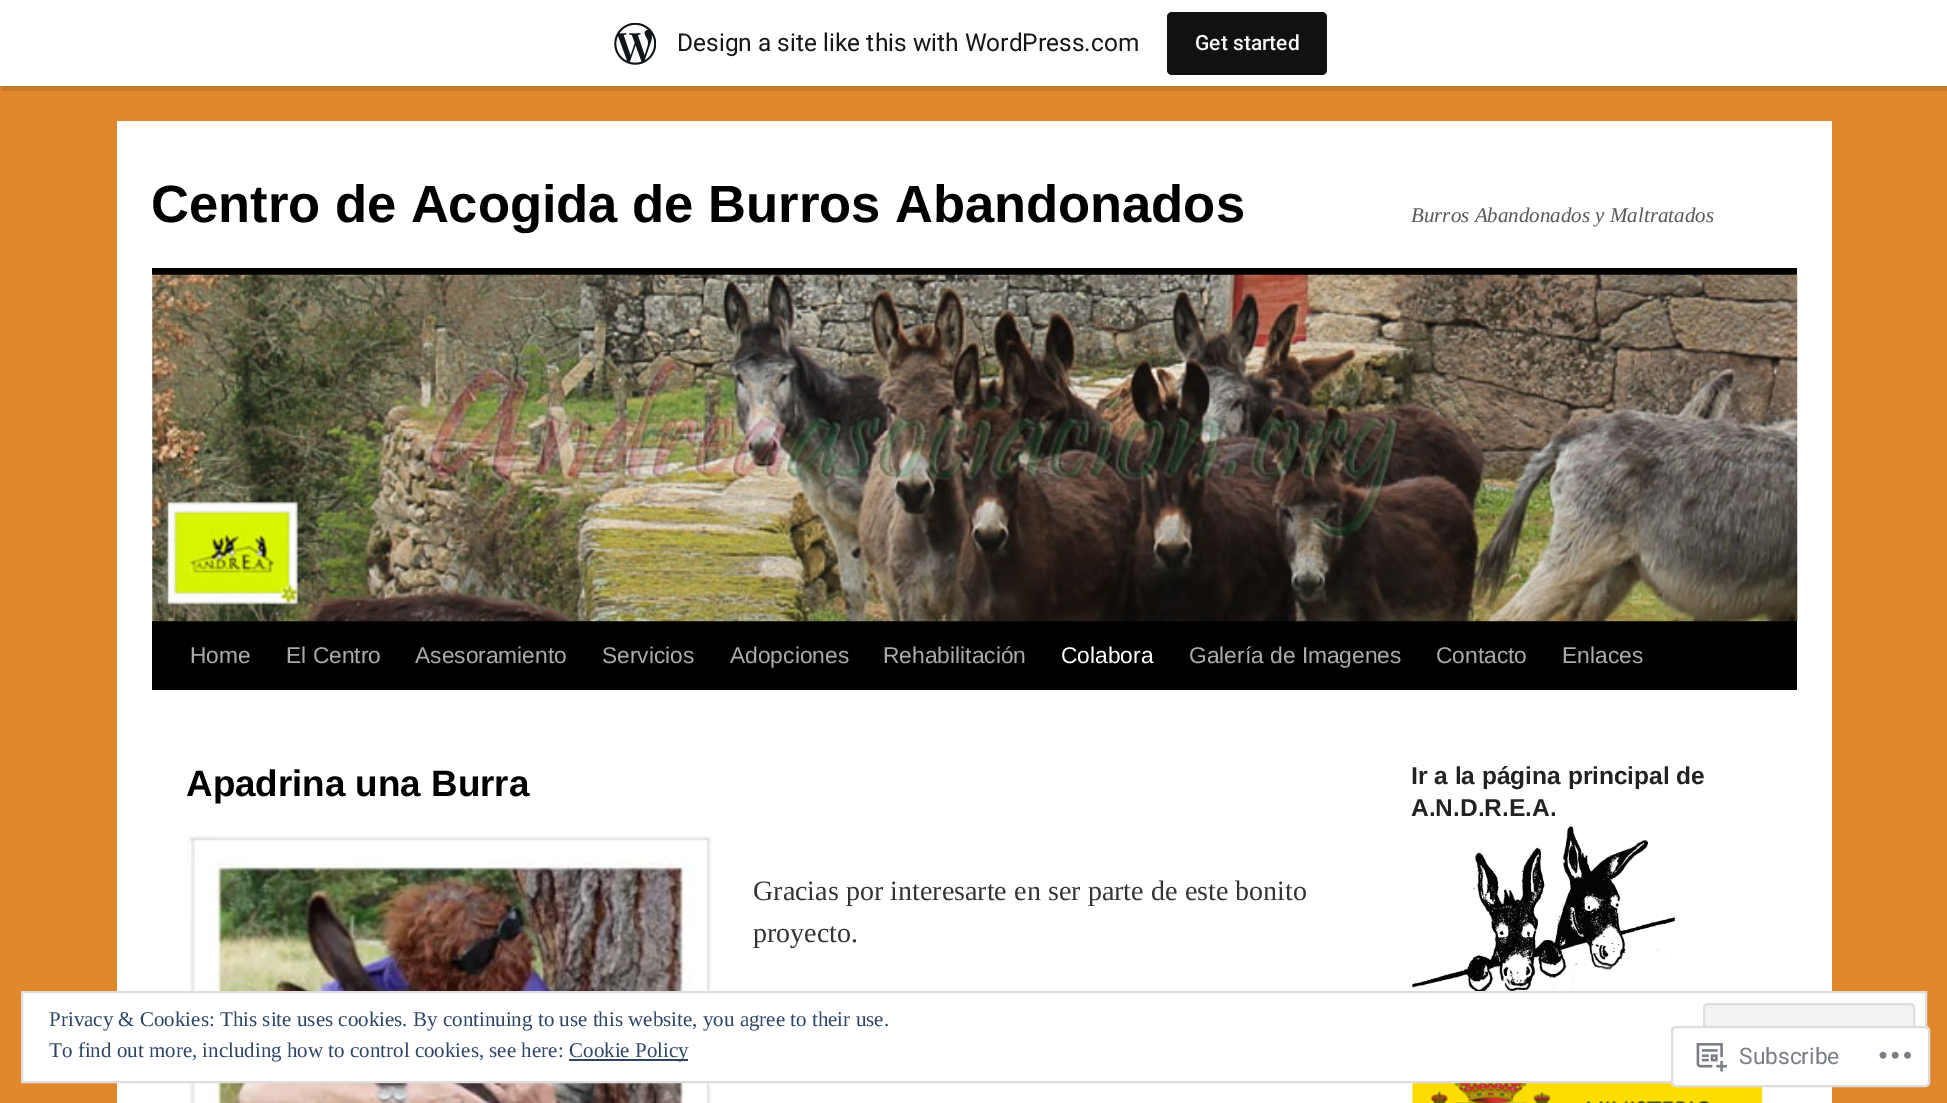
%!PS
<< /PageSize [1947 1103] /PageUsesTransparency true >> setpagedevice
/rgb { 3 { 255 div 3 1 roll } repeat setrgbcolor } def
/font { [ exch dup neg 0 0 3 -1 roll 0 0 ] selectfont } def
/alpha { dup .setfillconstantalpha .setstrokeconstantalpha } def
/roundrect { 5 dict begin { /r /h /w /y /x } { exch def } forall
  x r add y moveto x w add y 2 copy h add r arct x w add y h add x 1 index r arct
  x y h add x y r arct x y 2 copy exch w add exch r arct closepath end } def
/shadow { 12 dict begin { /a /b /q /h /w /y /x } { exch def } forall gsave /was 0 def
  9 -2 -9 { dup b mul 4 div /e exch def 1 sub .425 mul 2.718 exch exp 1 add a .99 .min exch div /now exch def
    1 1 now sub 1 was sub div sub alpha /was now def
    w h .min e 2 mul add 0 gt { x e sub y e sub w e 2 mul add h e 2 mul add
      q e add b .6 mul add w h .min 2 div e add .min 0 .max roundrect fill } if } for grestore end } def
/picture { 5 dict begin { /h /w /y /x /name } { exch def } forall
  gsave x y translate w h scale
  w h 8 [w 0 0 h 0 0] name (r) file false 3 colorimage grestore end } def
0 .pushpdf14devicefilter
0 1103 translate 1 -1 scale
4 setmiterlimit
226 136 44 rgb
0 0 1947 1103 rectfill
0 0 0 rgb
0 2 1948 86 0 2 0.05 shadow
0.08 alpha
2 86 moveto 2 91 lineto 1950 91 lineto 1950 5 lineto 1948 5 lineto 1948 86 lineto closepath fill
1 alpha
255 255 255 rgb
0 0 1947 86 rectfill
(img/1.rgb) 614 23 42 42 picture
17 17 17 rgb
1167 12 160 63 5 roundrect fill
[
  [117 121 1715 982 255 255 255]
  [152 268 1645 7 0 0 0]
  [152 621 1645 69 0 0 0]
] { aload pop rgb rectfill } forall
(img/2.rgb) 152 274 1646 348 picture
(img/3.rgb) 187 835 525 268 picture
(img/4.rgb) 1412 823 263 168 picture
(img/5.rgb) 1412 1083 351 20 picture
255 255 255 rgb
22 992 moveto 1926 992 lineto 1926 1082 lineto 22 1082 lineto closepath gsave fill grestore
222 222 222 rgb
2 setlinewidth
stroke
243 243 243 rgb
1704 1004 210 66 4 roundrect gsave fill grestore
222 222 222 rgb
stroke
46 68 103 rgb
569 1059 119 2 rectfill
0.98 alpha
255 255 255 rgb
1671 1026 259 61 5 roundrect fill
220 220 222 rgb
1672 1027 257 59 4 roundrect stroke
1 alpha
(img/6.rgb) 1696 1043 31 29 picture
(img/7.rgb) 1879 1051 32 8 picture
/Roboto-Regular 24.5 font
23 23 23 rgb
677 51 moveto (Design a site like this with WordPress.com) show
/Roboto-Medium 21 font
246 247 247 rgb
1195 50 moveto (Get started) show
/LiberationSans-Bold 52.5 font
0 0 0 rgb
151 222 moveto (Centro de Acogida de Burros Abandonados) show
/LiberationSerif-Italic 21 font
89 89 89 rgb
1411 222 moveto (Burros Abandonados y Maltratados) show
/LiberationSans-Regular 22.75 font
170 170 170 rgb
[
  [(Home) 190 663]
  [(El Centro) 286 663]
  [(Asesoramiento) 415 663]
  [(Servicios) 602 663]
  [(Adopciones) 730 663]
  [(Rehabilitación) 883 663]
] { aload pop moveto show } forall
255 255 255 rgb
1061 663 moveto (Colabora) show
170 170 170 rgb
[
  [(Galería de Imagenes) 1189 663]
  [(Contacto) 1436 663]
  [(Enlaces) 1562 663]
] { aload pop moveto show } forall
/LiberationSans-Bold 36.75 font
0 0 0 rgb
186 796 moveto (Apadrina una Burra) show
/LiberationSerif-Regular 28 font
51 51 51 rgb
753 900 moveto 0.25 0 32 (Gracias por interesarte en ser parte de este bonito) widthshow
753 942 moveto (proyecto.) show
/LiberationSans-Bold 24.5 font
34 34 34 rgb
1411 784 moveto (Ir a la página principal de) show
1411 816 moveto (A.N.D.R.E.A.) show
/LiberationSerif-Regular 21 font
46 68 103 rgb
[
  [(Privacy & Cookies: This site uses cookies. By continuing to use this website, you agree to their use.) 49 1026]
  [(To find out more, including how to control cookies, see here:) 49 1057]
  [(Cookie Policy) 569 1057]
] { aload pop moveto show } forall
/Roboto-Regular 22.75 font
122 126 132 rgb
1739 1064 moveto (Subscribe) show
.poppdf14devicefilter showpage
